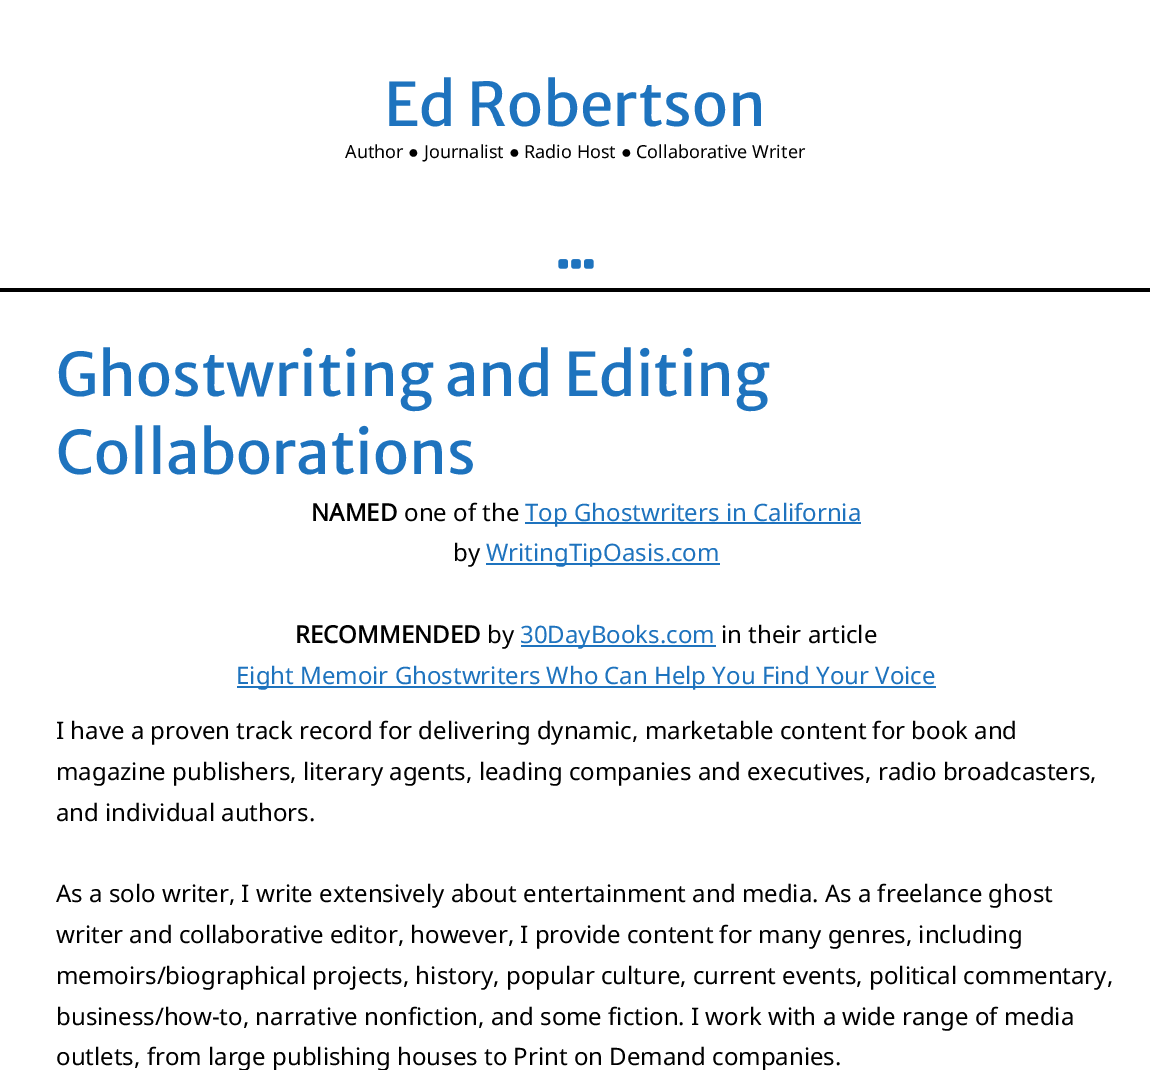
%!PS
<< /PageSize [1150 1070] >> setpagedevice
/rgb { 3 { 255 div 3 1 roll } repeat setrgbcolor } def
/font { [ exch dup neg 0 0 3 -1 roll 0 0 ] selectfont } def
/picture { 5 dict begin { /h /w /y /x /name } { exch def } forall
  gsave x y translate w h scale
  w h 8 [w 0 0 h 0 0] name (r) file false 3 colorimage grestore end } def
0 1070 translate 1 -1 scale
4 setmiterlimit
255 255 255 rgb
0 0 1150 1070 rectfill
(img/1.rgb) 558 259 36 10 picture
[
  [0 288 1150 4 0 0 0]
  [525 522 336 2 30 115 190]
  [486 563 234 2 30 115 190]
  [521 645 195 2 30 115 190]
  [237 686 699 2 30 115 190]
] { aload pop rgb rectfill } forall
/MerriweatherSans-Regular 60 font
384 126 moveto (Ed Robertson) show
/NotoSans-Regular 18 font
0 0 0 rgb
345 158 moveto (Author) show
/LiberationSerif-Regular 18 font
408 158 moveto (●) show
/NotoSans-Regular 18 font
424 158 moveto (Journalist) show
/LiberationSerif-Regular 18 font
509 158 moveto (●) show
/NotoSans-Regular 18 font
524 158 moveto (Radio Host) show
/LiberationSerif-Regular 18 font
621 158 moveto (●) show
/NotoSans-Regular 18 font
636 158 moveto (Collaborative Writer) show
/MerriweatherSans-Regular 60 font
30 115 190 rgb
56 396 moveto (Ghostwriting and Editing) show
56 474 moveto (Collaborations) show
/NotoSans-Bold 24 font
0 0 0 rgb
311 521 moveto (NAMED) show
/NotoSans-Regular 24 font
404 521 moveto (one of the) show
30 115 190 rgb
525 521 moveto (Top Ghostwriters in California) show
0 0 0 rgb
453 561 moveto (by) show
30 115 190 rgb
486 561 moveto (WritingTipOasis.com) show
/NotoSans-Bold 24 font
0 0 0 rgb
295 643 moveto (RECOMMENDED) show
/NotoSans-Regular 24 font
487 643 moveto (by) show
30 115 190 rgb
520 643 moveto (30DayBooks.com) show
0 0 0 rgb
721 643 moveto (in their article) show
30 115 190 rgb
236 684 moveto (Eight Memoir Ghostwriters Who Can Help You Find Your Voice) show
0 0 0 rgb
[
  [(I have a proven track record for delivering dynamic, marketable content for book and) 56 739]
  [(magazine publishers, literary agents, leading companies and executives, radio broadcasters,) 56 780]
  [(and individual authors.) 56 821]
  [(As a solo writer, I write extensively about entertainment and media. As a freelance ghost) 56 902]
  [(writer and collaborative editor, however, I provide content for many genres, including) 56 943]
  [(memoirs/biographical projects, history, popular culture, current events, political commentary,) 56 984]
  [(business/how-to, narrative nonfiction, and some fiction. I work with a wide range of media) 56 1025]
  [(outlets, from large publishing houses to Print on Demand companies.) 56 1065]
] { aload pop moveto show } forall
showpage
